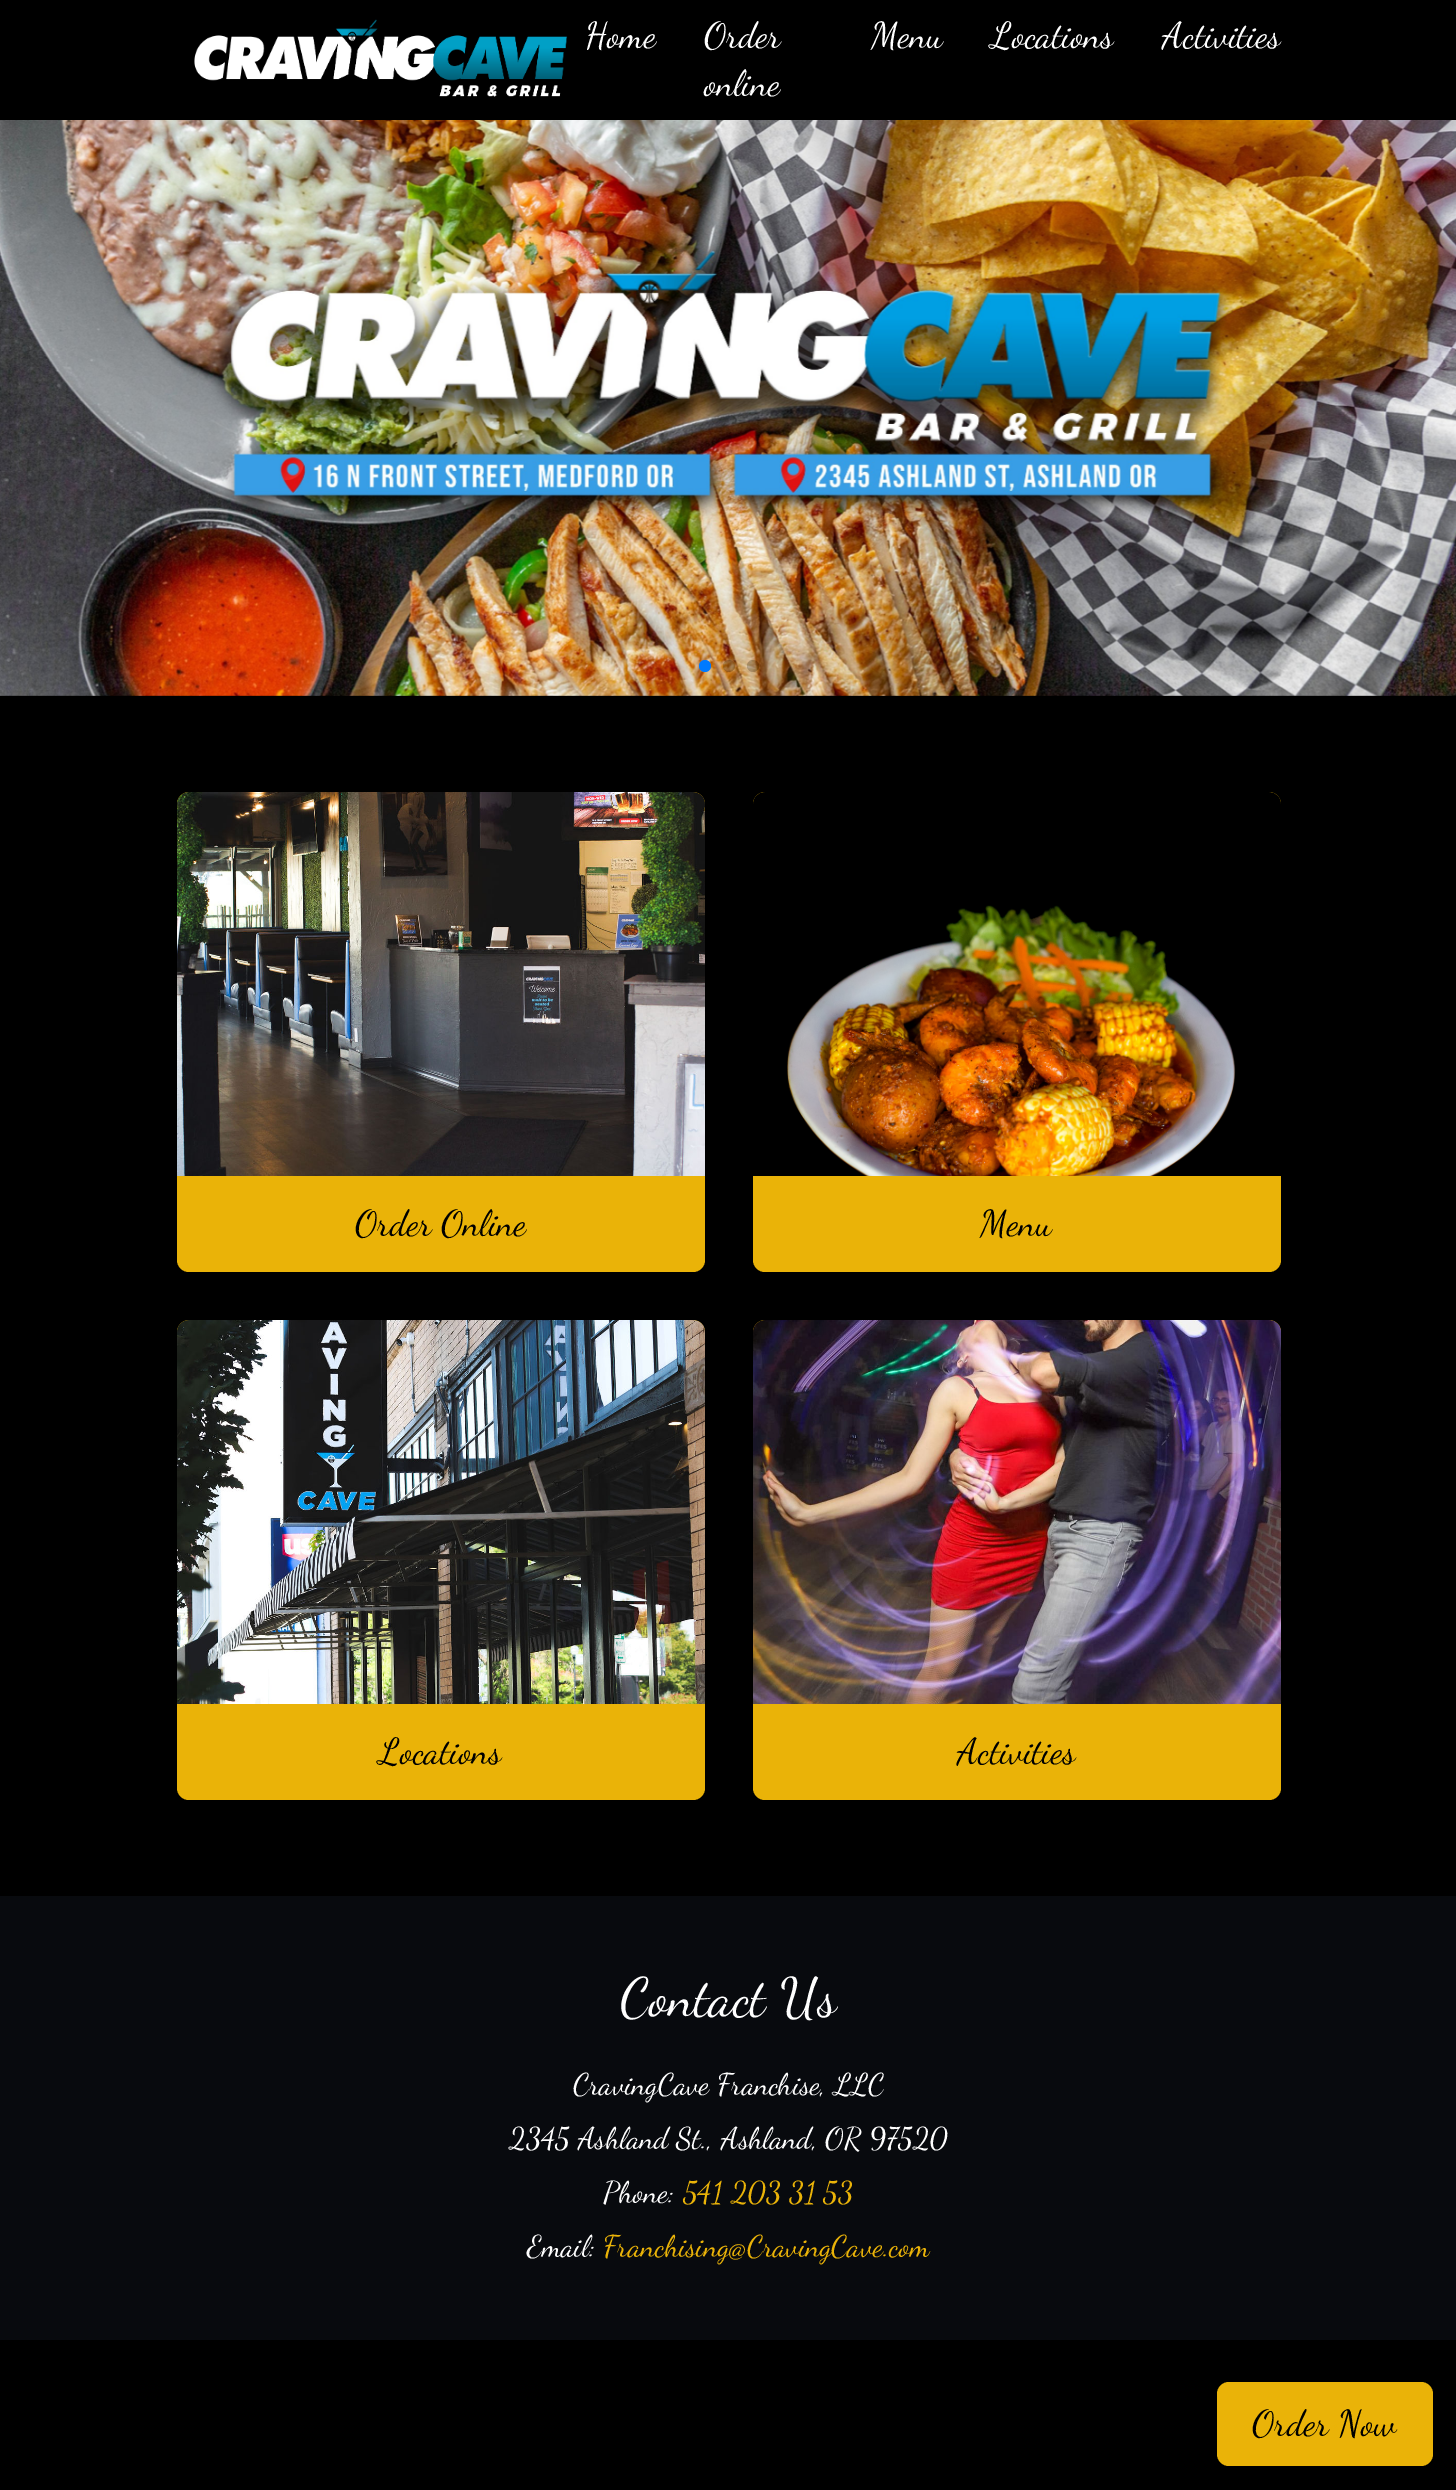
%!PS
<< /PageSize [1456 2490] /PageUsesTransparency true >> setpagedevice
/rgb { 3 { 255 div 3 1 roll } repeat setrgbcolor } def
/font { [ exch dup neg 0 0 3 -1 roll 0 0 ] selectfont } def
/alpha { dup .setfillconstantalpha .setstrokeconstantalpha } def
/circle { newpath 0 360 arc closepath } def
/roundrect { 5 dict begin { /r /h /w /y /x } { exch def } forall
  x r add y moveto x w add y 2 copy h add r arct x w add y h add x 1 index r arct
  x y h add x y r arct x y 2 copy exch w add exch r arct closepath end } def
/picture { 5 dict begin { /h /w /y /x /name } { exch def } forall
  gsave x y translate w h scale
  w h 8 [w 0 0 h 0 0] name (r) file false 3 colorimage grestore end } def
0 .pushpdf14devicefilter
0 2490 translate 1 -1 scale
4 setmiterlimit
0 0 0 rgb
0 0 1456 2490 rectfill
(img/1.rgb) 194 19 374 78 picture
(img/2.rgb) 0 120 1456 576 picture
0 122 255 rgb
705 666 6 circle fill
0.2 alpha
0 0 0 rgb
729 666 6 circle fill
753 666 6 circle fill
1 alpha
234 179 8 rgb
177 792 528 480 12 roundrect fill
(img/3.rgb) 177 792 528 384 picture
753 792 528 480 12 roundrect fill
(img/4.rgb) 753 792 528 384 picture
177 1320 528 480 12 roundrect fill
(img/5.rgb) 177 1320 528 384 picture
753 1320 528 480 12 roundrect fill
(img/6.rgb) 753 1320 528 384 picture
8 10 14 rgb
0 1896 1456 444 rectfill
234 179 8 rgb
1217 2382 216 84 12 roundrect fill
/DancingScript-Regular 36 font
255 255 255 rgb
[
  [(Home) 585 47]
  [(Order) 704 47]
  [(online) 704 95]
  [(Menu) 871 47]
  [(Locations) 991 47]
  [(Activities) 1162 47]
] { aload pop moveto show } forall
0 0 0 rgb
[
  [(Order Online) 355 1235]
  [(Menu) 980 1235]
  [(Locations) 379 1763]
  [(Activities) 957 1763]
] { aload pop moveto show } forall
/DancingScript-Regular 54 font
255 255 255 rgb
620 2015 moveto (Contact Us) show
/DancingScript-Regular 30 font
[
  [(CravingCave Franchise, LLC) 573 2094]
  [(2345 Ashland St., Ashland, OR 97520) 509 2148]
  [(Phone:) 603 2202]
] { aload pop moveto show } forall
234 179 8 rgb
683 2202 moveto (541 203 31 53) show
255 255 255 rgb
527 2256 moveto (Email:) show
234 179 8 rgb
603 2256 moveto (Franchising@CravingCave.com) show
/DancingScript-Regular 36 font
0 0 0 rgb
1252 2435 moveto (Order Now) show
.poppdf14devicefilter showpage
